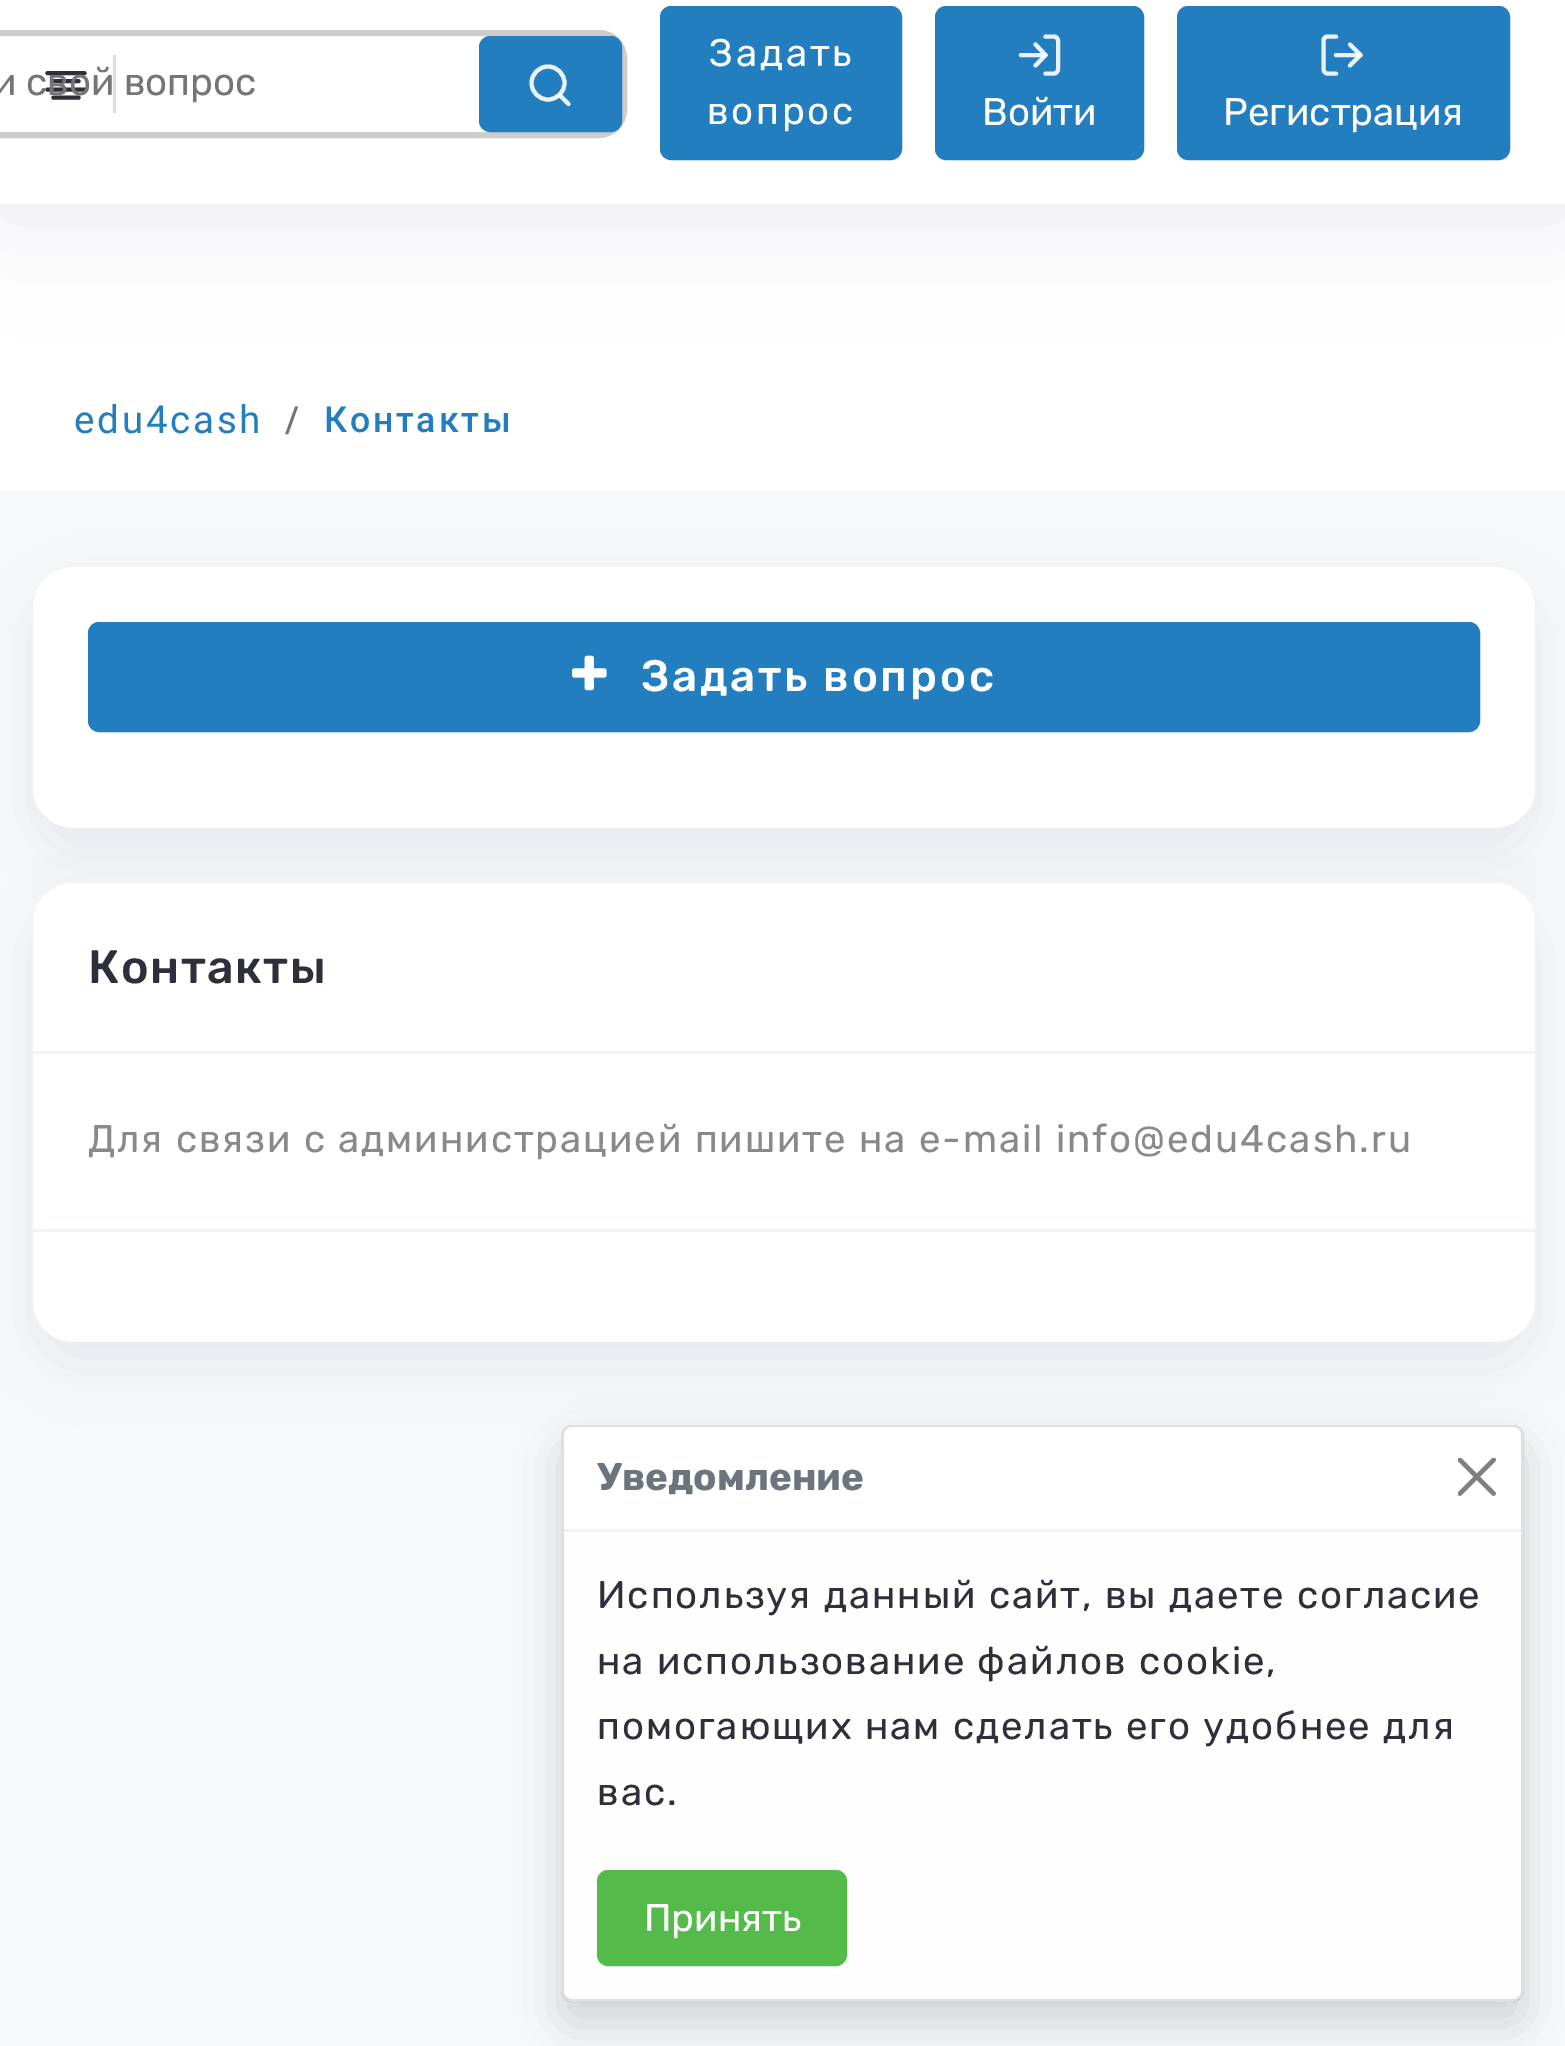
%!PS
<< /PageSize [1565 2046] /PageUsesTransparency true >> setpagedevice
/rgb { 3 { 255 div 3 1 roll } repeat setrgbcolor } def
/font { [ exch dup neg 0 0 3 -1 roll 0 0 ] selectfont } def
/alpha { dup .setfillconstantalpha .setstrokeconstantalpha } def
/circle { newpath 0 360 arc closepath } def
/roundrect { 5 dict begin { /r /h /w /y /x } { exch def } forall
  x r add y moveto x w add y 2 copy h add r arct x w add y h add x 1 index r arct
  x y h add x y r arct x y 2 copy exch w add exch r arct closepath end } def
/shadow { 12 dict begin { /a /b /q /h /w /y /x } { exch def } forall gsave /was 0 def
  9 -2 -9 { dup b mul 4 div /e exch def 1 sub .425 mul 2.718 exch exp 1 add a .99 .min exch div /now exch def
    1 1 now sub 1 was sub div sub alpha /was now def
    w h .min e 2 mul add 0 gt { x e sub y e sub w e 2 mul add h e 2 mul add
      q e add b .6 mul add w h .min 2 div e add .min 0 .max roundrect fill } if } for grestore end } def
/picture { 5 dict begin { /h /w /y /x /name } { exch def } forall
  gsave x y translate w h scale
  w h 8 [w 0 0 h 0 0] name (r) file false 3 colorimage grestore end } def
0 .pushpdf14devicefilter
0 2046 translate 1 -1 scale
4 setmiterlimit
255 255 255 rgb
0 0 1565 2046 rectfill
39 32 120 rgb
0 -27 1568 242 0 55 0.1 shadow
255 255 255 rgb
0 0 1565 204 rectfill
221 221 221 rgb
113 55 3 58 rectfill
47 47 59 rgb
4.1 setlinewidth
1 setlinecap
1 setlinejoin
78.5 81 moveto 53.5 81 lineto 84.5 73 moveto 47.5 73 lineto 84.5 89.5 moveto 47.5 89.5 lineto 78.5 97.5 moveto 53.5 97.5 lineto stroke
204 204 204 rgb
6 setlinewidth
0 setlinecap
0 setlinejoin
-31 33 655 102 25 roundrect stroke
34 126 190 rgb
480.5 37.5 140 93 9.5 roundrect gsave fill grestore
3 setlinewidth
stroke
233 242 249 rgb
4.1 setlinewidth
548 83 16.5 circle stroke
0.9 alpha
255 255 255 rgb
1 setlinecap
1 setlinejoin
568.5 104 moveto 559.5 95 lineto stroke
1 alpha
34 126 190 rgb
661.5 7.5 239 151 9.5 roundrect gsave fill grestore
3 setlinewidth
0 setlinecap
0 setlinejoin
stroke
936.5 7.5 206 151 9.5 roundrect gsave fill grestore
stroke
233 242 249 rgb
4.1 setlinewidth
1 setlinecap
1 setlinejoin
1045.5 36.5 moveto 1054 36.5 lineto 1056 36.5 1058 38.5 1058 40.5 curveto 1058 69.5 lineto 1058 71.5 1056 73.5 1054 73.5 curveto 1045.5 73.5 lineto 1035.5 65.5 moveto 1045.5 55 lineto 1035.5 44.5 lineto stroke
0.9 alpha
255 255 255 rgb
1045.5 55 moveto 1021 55 lineto stroke
1 alpha
34 126 190 rgb
1178.5 7.5 330 151 9.5 roundrect gsave fill grestore
3 setlinewidth
0 setlinecap
0 setlinejoin
stroke
233 242 249 rgb
4.1 setlinewidth
1 setlinecap
1 setlinejoin
1336 73.5 moveto 1327.5 73.5 lineto 1325.5 73.5 1323.5 71.5 1323.5 69.5 curveto 1323.5 40.5 lineto 1323.5 38.5 1325.5 36.5 1327.5 36.5 curveto 1336 36.5 lineto 1350 65.5 moveto 1360.5 55 lineto 1350 44.5 lineto stroke
0.9 alpha
255 255 255 rgb
1360.5 55 moveto 1336 55 lineto stroke
1 alpha
247 248 249 rgb
0 490 1565 1556 rectfill
46 35 94 rgb
33 591 1502 262 41 27.5 0.07 shadow
255 255 255 rgb
33 567 1502 261 41 roundrect fill
34 126 190 rgb
89.5 623.5 1389 107 9.5 roundrect gsave fill grestore
3 setlinewidth
0 setlinecap
0 setlinejoin
stroke
(img/1.rgb) 572 655 35 36 picture
46 35 94 rgb
33 908 1502 459 41 27.5 0.07 shadow
255 255 255 rgb
33 883 1502 459 41 roundrect fill
74 883 moveto 1494 883 lineto 1516.5 883 1535 901.5 1535 924 curveto 1535 1053 lineto 33 1053 lineto 33 924 lineto 33 901.5 51.5 883 74 883 curveto closepath fill
236 243 250 rgb
33 1051 1502 3 rectfill
255 255 255 rgb
33 1229 moveto 1535 1229 lineto 1535 1301 lineto 1535 1323.5 1516.5 1342 1494 1342 curveto 74 1342 lineto 51.5 1342 33 1323.5 33 1301 curveto closepath fill
236 243 250 rgb
33 1229 1502 3 rectfill
gsave
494 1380 moveto 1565 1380 lineto 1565 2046 lineto 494 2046 lineto closepath 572 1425 moveto 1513 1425 lineto 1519 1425 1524 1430 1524 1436 curveto 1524 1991 lineto 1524 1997 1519 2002 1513 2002 curveto 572 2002 lineto 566 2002 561 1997 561 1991 curveto 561 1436 lineto 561 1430 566 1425 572 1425 curveto closepath eoclip newpath
0 0 0 rgb
561 1447 963 577 11 22 0.15 shadow
grestore
254 254 254 rgb
564 1427 957 572 8 roundrect fill
0.1 alpha
0 0 0 rgb
562.5 1426.5 960 574 9.5 roundrect stroke
0.85 alpha
255 255 255 rgb
572 1427 moveto 1513 1427 lineto 1517.5 1427 1521 1430.5 1521 1435 curveto 1521 1529 lineto 564 1529 lineto 564 1435 lineto 564 1430.5 567.5 1427 572 1427 curveto closepath fill
1 alpha
241 241 241 rgb
564 1529 957 3 rectfill
(img/2.rgb) 1458 1458 38 38 picture
84 186 74 rgb
598.5 1871.5 247 93 9.5 roundrect gsave fill grestore
stroke
/Rubik-Regular 38.5 font
117 117 117 rgb
-7 95 moveto (и свой вопрос) show
255 255 255 rgb
709 66 moveto 2.75 0 (Задать) ashow
707 124 moveto 2.75 0 (вопрос) ashow
982 125 moveto (Войти) show
1223 125 moveto (Регистрация) show
/Roboto-Regular 38.5 font
34 126 190 rgb
74 433 moveto 2.75 0 (edu4cash) ashow
/Roboto-Medium 35.75 font
108 117 125 rgb
285 432 moveto 2.75 0 (/) ashow
34 126 190 rgb
324 432 moveto 2.75 0 (Контакты) ashow
/Rubik-Medium 44 font
255 255 255 rgb
641 691 moveto 2.75 0 (Задать вопрос) ashow
/Rubik-Medium 46.75 font
47 47 59 rgb
88 983 moveto 1.5 0 (Контакты) ashow
/Rubik-Regular 38.5 font
137 137 137 rgb
88 1152 moveto 1.92 0 (Для связи с администрацией пишите на e-mail info@edu4cash.ru) ashow
/Rubik-Bold 38.5 font
108 117 125 rgb
597 1490 moveto (Уведомление) show
/Rubik-Regular 38.5 font
47 47 59 rgb
597 1608 moveto 1.92 0 (Используя данный сайт, вы даете согласие) ashow
597 1674 moveto 1.92 0 (на использование файлов cookie,) ashow
597 1739 moveto 1.92 0 (помогающих нам сделать его удобнее для) ashow
597 1805 moveto 1.92 0 (вас.) ashow
255 255 255 rgb
644 1931 moveto (Принять) show
.poppdf14devicefilter showpage
